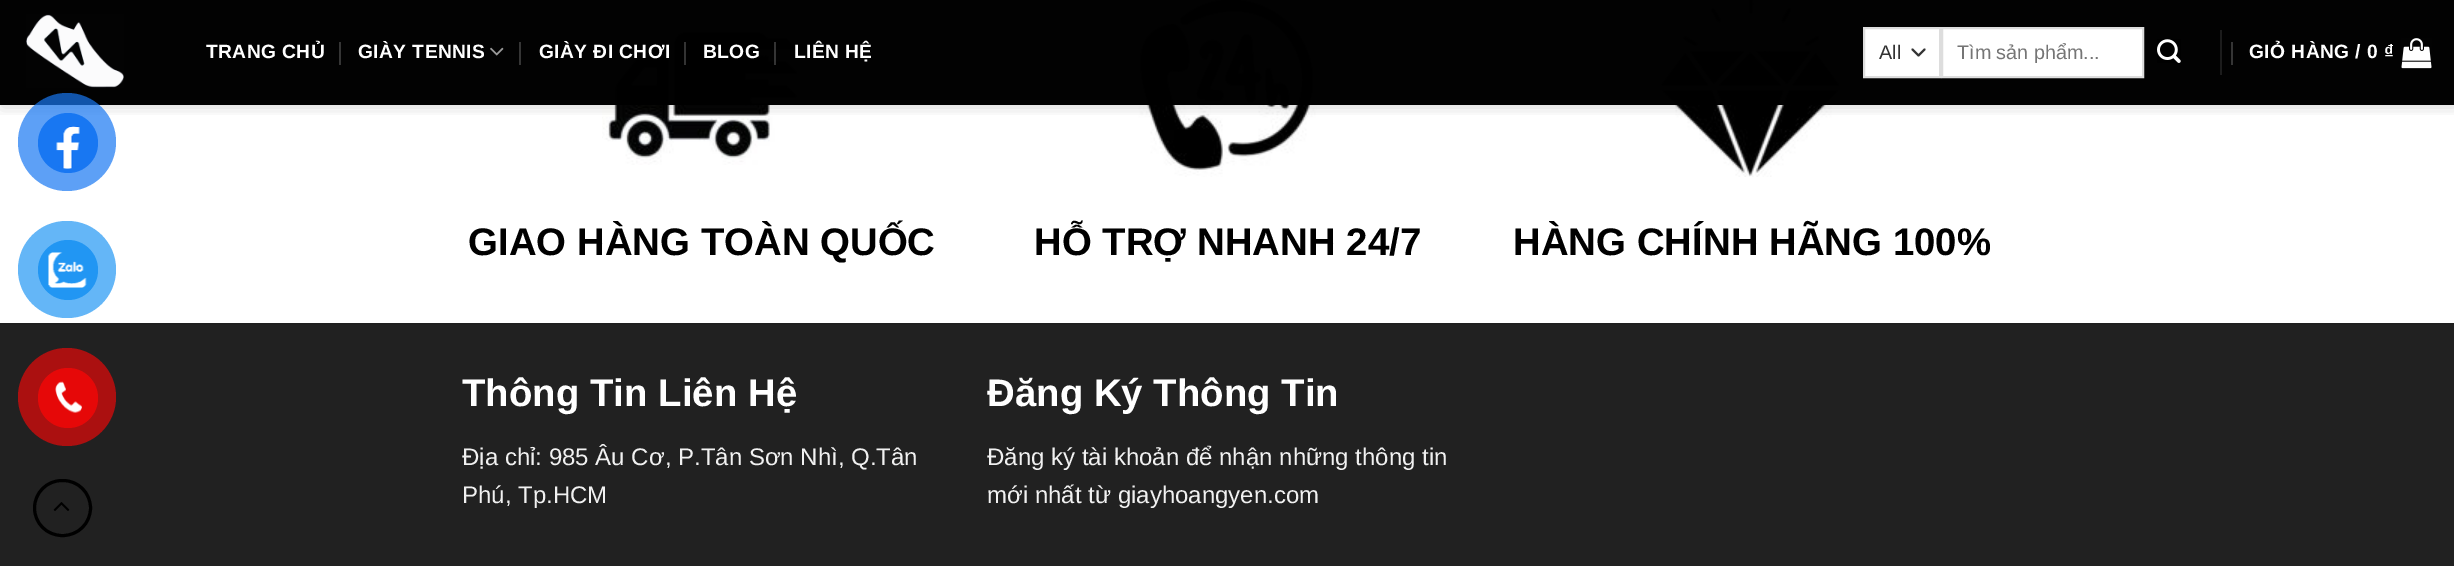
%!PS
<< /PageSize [2454 566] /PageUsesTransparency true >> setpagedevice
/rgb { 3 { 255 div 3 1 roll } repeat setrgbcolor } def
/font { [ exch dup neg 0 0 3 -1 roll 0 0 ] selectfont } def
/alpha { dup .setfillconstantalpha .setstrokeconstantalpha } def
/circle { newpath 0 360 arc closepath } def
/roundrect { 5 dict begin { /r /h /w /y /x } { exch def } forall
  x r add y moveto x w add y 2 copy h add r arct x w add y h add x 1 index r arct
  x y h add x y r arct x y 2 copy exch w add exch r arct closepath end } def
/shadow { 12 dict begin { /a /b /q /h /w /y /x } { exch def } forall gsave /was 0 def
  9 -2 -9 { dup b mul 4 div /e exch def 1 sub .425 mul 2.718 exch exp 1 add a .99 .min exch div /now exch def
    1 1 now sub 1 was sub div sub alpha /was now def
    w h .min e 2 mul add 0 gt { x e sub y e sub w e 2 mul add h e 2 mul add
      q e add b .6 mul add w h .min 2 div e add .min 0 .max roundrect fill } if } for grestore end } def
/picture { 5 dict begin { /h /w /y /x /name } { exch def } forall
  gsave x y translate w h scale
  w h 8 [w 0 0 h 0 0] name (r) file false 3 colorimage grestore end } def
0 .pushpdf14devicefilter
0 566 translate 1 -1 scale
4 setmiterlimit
255 255 255 rgb
0 0 2454 566 rectfill
(img/8.rgb) 602 24 204 141 picture
(img/9.rgb) 1138 0 179 177 picture
(img/10.rgb) 1652 0 192 177 picture
gsave
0 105 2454 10 rectclip
0 0 0 rgb
2 2 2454 105 0 7.5 0.15 shadow
grestore
0.9 alpha
0 0 0 rgb
0 0 2454 105 rectfill
0 0 2454 105 rectfill
0.7 alpha
24 119 242 rgb
67 142 49 circle fill
1 alpha
68 143 30 circle fill
(img/1.rgb) 56 126 24 43 picture
100 182 247 rgb
18 221 98 97 48.5 roundrect fill
33 150 243 rgb
68 270 30 circle fill
(img/2.rgb) 48 252 39 36 picture
33 33 33 rgb
0 325 2454 241 rectfill
171 16 16 rgb
67 397 49 circle fill
230 8 8 rgb
68 398 30 circle fill
(img/3.rgb) 55 381 27 32 picture
(img/4.rgb) 26 14 98 74 picture
53 53 53 rgb
339 42 2 23 rectfill
(img/5.rgb) 490 47 14 9 picture
[
  [519 42 2 23 53 53 53]
  [684 42 2 23 51 51 51]
] { aload pop rgb rectfill } forall
0.2 alpha
[
  [774 42 2 23 255 255 255]
] { aload pop rgb rectfill } forall
1 alpha
[
  [1865 29 74 47 255 255 255]
] { aload pop rgb rectfill } forall
51 51 51 rgb
2 setlinewidth
1 setlinecap
1 setlinejoin
1912.5 49.5 moveto 1918.5 55.5 lineto 1924.5 49.5 lineto stroke
221 221 221 rgb
0 setlinecap
0 setlinejoin
1864 28 76 49 rectstroke
255 255 255 rgb
1942 28 moveto 2143 28 lineto 2143 77 lineto 1942 77 lineto closepath gsave fill grestore
221 221 221 rgb
stroke
(img/6.rgb) 2157 39 24 24 picture
28 28 28 rgb
2220 30 2 45 rectfill
53 53 53 rgb
2231 42 2 23 rectfill
(img/7.rgb) 2401 38 31 31 picture
0 0 0 rgb
3 setlinewidth
34.5 480.5 56 55 27.5 roundrect stroke
(img/11.rgb) 53 502 17 9 picture
31 31 31 rgb
0 323 2454 2 rectfill
/LiberationSans-Bold 19.25 font
255 255 255 rgb
206 58 moveto 0.4 0 (TRANG CHỦ) ashow
358 58 moveto 0.4 0 (GIÀY TENNIS) ashow
539 58 moveto 0.4 0 (GIÀY ĐI CHƠI) ashow
703 58 moveto 0.4 0 (BLOG) ashow
794 58 moveto 0.4 0 (LIÊN HỆ) ashow
/LiberationSans-Regular 19.75 font
51 51 51 rgb
1879 59 moveto (All) show
117 117 117 rgb
1957 59 moveto (Tìm sản phẩm...) show
/LiberationSans-Bold 19.25 font
255 255 255 rgb
2249 58 moveto 0.4 0 (GIỎ HÀNG / 0 ₫) ashow
/LiberationSans-Bold 38.4 font
0 0 0 rgb
[
  [(GIAO HÀNG TOÀN QUỐC) 468 255]
  [(HỖ TRỢ NHANH 24/7) 1034 255]
  [(HÀNG CHÍNH HÃNG 100%) 1513 255]
] { aload pop moveto show } forall
255 255 255 rgb
462 406 moveto (Thông Tin Liên Hệ) show
/LiberationSans-Regular 24 font
241 241 241 rgb
462 465 moveto (Địa chỉ: 985 Âu Cơ, P.Tân Sơn Nhì, Q.Tân) show
462 503 moveto (Phú, Tp.HCM) show
/LiberationSans-Bold 38.4 font
255 255 255 rgb
987 406 moveto (Đăng Ký Thông Tin) show
/LiberationSans-Regular 24 font
241 241 241 rgb
987 465 moveto (Đăng ký tài khoản để nhận những thông tin) show
987 503 moveto (mới nhất từ giayhoangyen.com) show
.poppdf14devicefilter showpage
